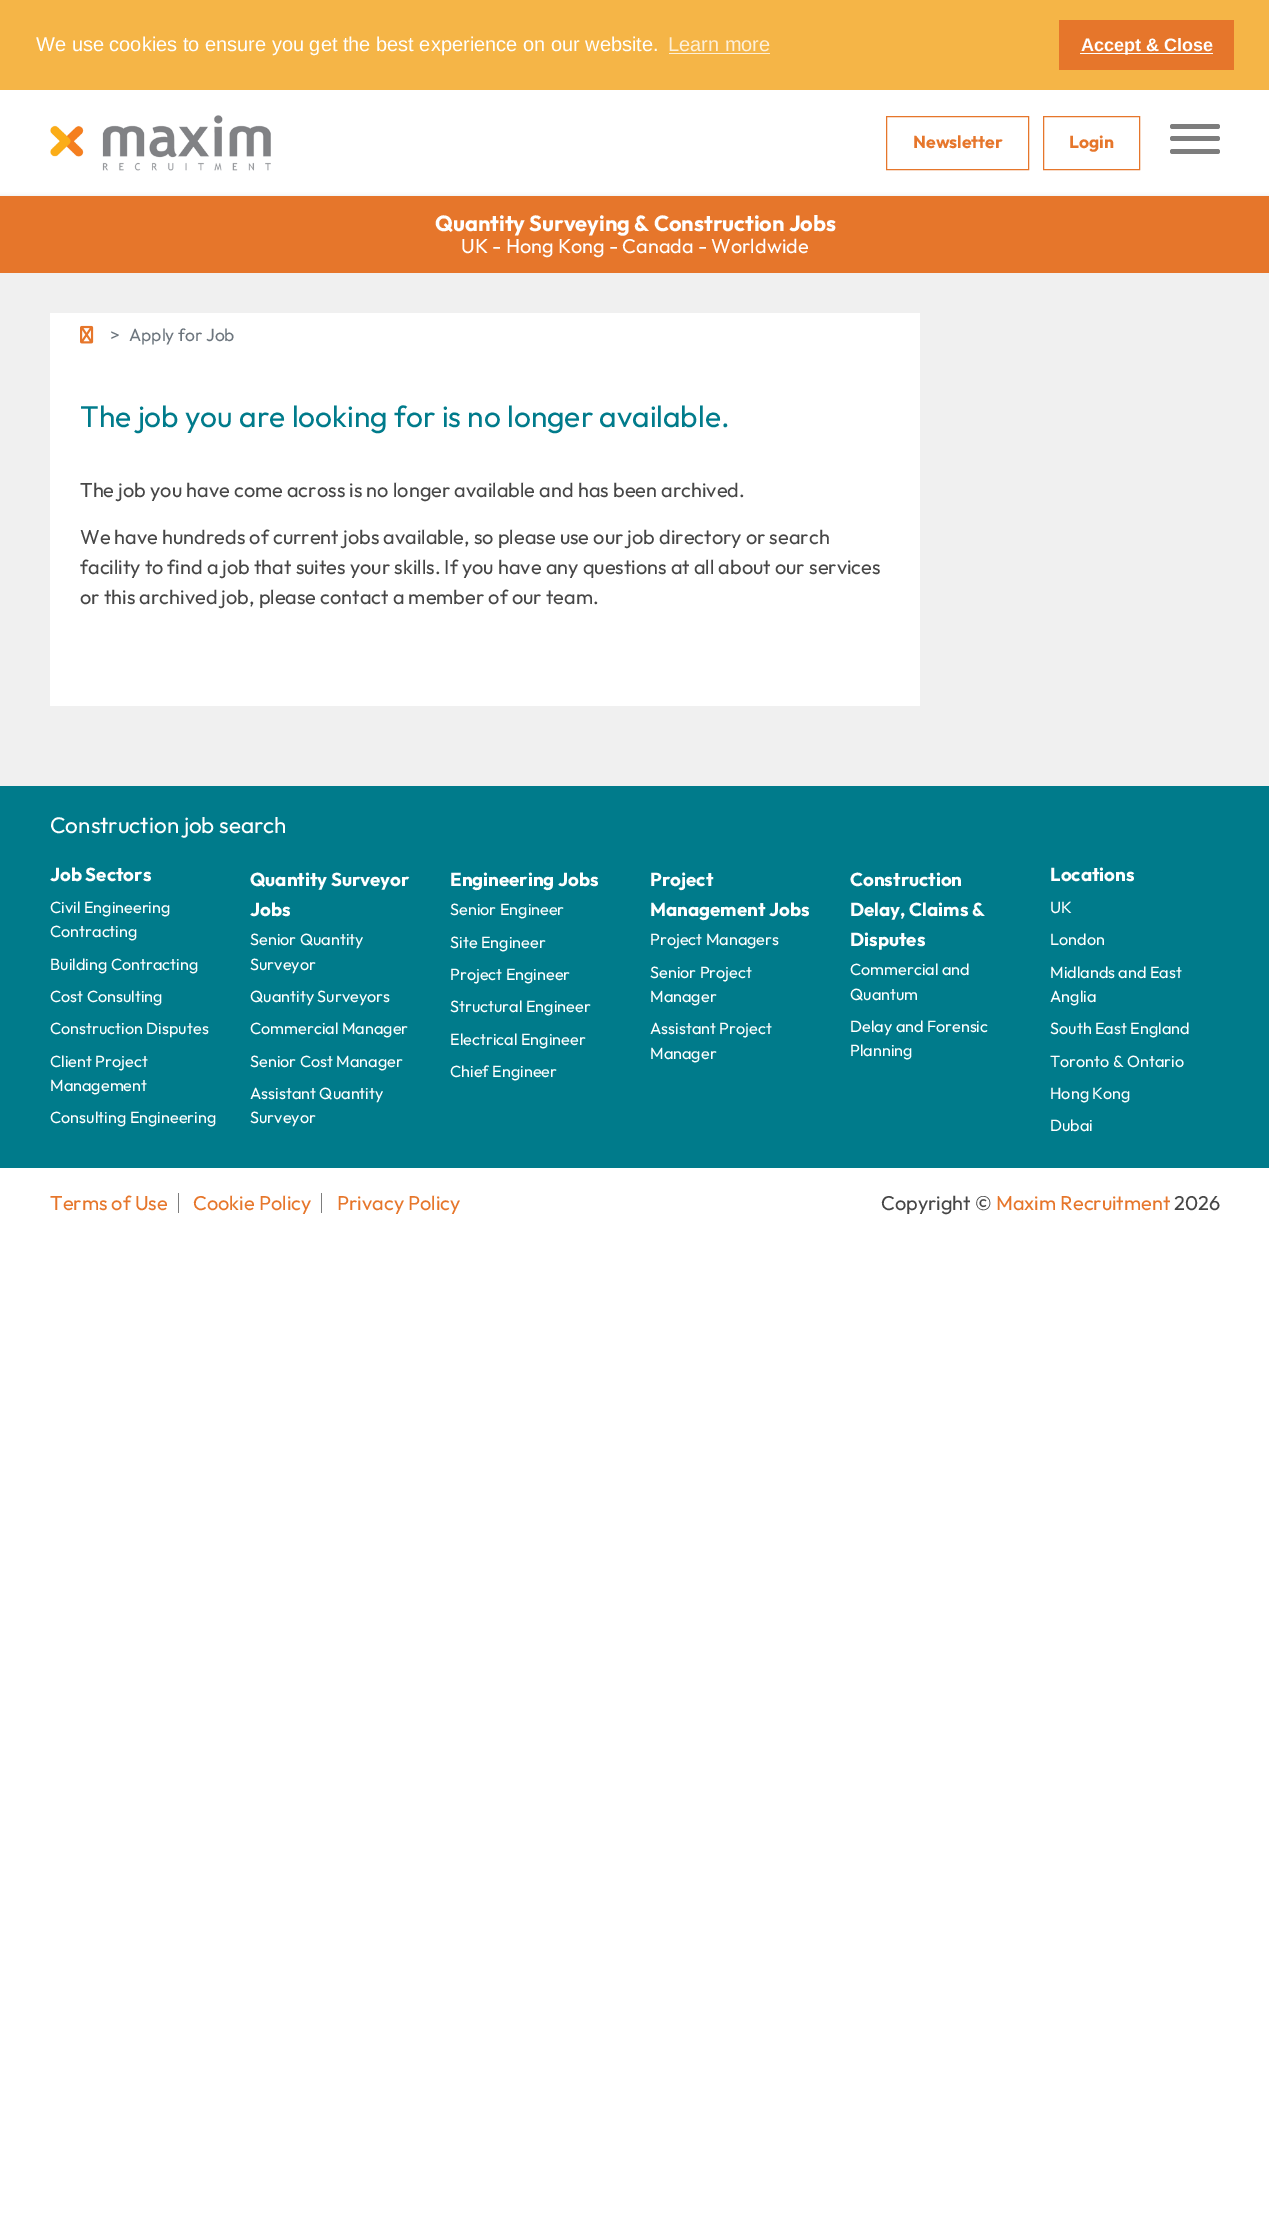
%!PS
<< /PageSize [1269 2223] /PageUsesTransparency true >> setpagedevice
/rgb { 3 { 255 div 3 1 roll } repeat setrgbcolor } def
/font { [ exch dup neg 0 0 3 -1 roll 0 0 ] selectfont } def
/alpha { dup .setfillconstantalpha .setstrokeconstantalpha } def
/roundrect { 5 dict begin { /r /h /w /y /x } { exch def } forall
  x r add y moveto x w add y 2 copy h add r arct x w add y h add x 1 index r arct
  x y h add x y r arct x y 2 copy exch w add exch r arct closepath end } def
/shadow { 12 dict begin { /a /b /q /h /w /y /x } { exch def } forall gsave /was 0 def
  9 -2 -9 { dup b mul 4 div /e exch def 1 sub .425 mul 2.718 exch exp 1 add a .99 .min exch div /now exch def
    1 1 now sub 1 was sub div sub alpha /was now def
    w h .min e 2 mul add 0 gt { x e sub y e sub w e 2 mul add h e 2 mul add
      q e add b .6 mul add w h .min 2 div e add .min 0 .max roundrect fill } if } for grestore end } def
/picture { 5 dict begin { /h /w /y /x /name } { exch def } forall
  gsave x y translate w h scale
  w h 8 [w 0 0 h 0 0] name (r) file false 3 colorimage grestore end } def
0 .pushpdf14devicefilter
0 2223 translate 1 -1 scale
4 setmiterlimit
255 255 255 rgb
0 0 1269 2223 rectfill
[
  [0 0 1269 90 245 181 71]
  [669 53 101 1 253 240 218]
  [1059 20 175 50 230 118 43]
  [1080 53 133 1 255 255 255]
] { aload pop rgb rectfill } forall
(img/1.rgb) 50 115 221 56 picture
230 118 43 rgb
886.5 116.5 142 53 rectstroke
1043.5 116.5 96 53 rectstroke
125 125 125 rgb
1170 124 50 5 2.5 roundrect fill
1170 136 50 5 2.5 roundrect fill
1170 149 50 5 2.5 roundrect fill
187 187 187 rgb
0 198 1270 76 0 2.5 1 shadow
[
  [0 196 1269 77 230 118 43]
  [0 273 1269 513 240 240 240]
  [50 313 870 393 255 255 255]
] { aload pop rgb rectfill } forall
(img/2.rgb) 80 325 14 19 picture
[
  [0 786 1269 382 0 123 139]
  [178 1193 1 20 125 125 125]
  [321 1193 1 20 125 125 125]
] { aload pop rgb rectfill } forall
/LiberationSans-Regular 20 font
255 255 255 rgb
36 51 moveto (We use cookies to ensure you get the best experience on our website.) show
253 240 218 rgb
668 51 moveto (Learn more) show
/LiberationSans-Bold 18 font
255 255 255 rgb
1081 51 moveto (Accept & Close) show
/Outfit-Bold 17.5 font
230 118 43 rgb
913 148 moveto (Newsletter) show
1069 148 moveto (Login) show
/Outfit-Bold 21.9 font
255 255 255 rgb
435 231 moveto (Quantity Surveying & Construction Jobs) show
/Outfit-Regular 20 font
461 253 moveto (UK - Hong Kong - Canada - Worldwide) show
/Outfit-Regular 17.5 font
108 117 125 rgb
110 341 moveto (>) show
129 341 moveto (Apply for Job) show
/Outfit-Regular 30 font
0 123 139 rgb
80 427 moveto (The job you are looking for is no longer available.) show
/Outfit-Regular 20 font
70 70 70 rgb
[
  [(The job you have come across is no longer available and has been archived.) 80 497]
  [(We have hundreds of current jobs available, so please use our job directory or search) 80 544]
  [(facility to find a job that suites your skills. If you have any questions at all about our services) 80 574]
  [(or this archived job, please contact a member of our team.) 80 604]
] { aload pop moveto show } forall
/Outfit-Regular 22.5 font
255 255 255 rgb
50 833 moveto (Construction job search) show
/Outfit-Bold 18.75 font
50 881 moveto (Job Sectors) show
/Outfit-Regular 16.25 font
[
  [(Civil Engineering) 50 913]
  [(Contracting) 50 937]
  [(Building Contracting) 50 970]
  [(Cost Consulting) 50 1002]
  [(Construction Disputes) 50 1034]
  [(Client Project) 50 1067]
  [(Management) 50 1091]
  [(Consulting Engineering) 50 1123]
] { aload pop moveto show } forall
/Outfit-Bold 18.75 font
250 886 moveto (Quantity Surveyor) show
250 916 moveto (Jobs) show
/Outfit-Regular 16.25 font
[
  [(Senior Quantity) 250 945]
  [(Surveyor) 250 970]
  [(Quantity Surveyors) 250 1002]
  [(Commercial Manager) 250 1034]
  [(Senior Cost Manager) 250 1067]
  [(Assistant Quantity) 250 1099]
  [(Surveyor) 250 1123]
] { aload pop moveto show } forall
/Outfit-Bold 18.75 font
450 886 moveto (Engineering Jobs) show
/Outfit-Regular 16.25 font
[
  [(Senior Engineer) 450 915]
  [(Site Engineer) 450 948]
  [(Project Engineer) 450 980]
  [(Structural Engineer) 450 1012]
  [(Electrical Engineer) 450 1045]
  [(Chief Engineer) 450 1077]
] { aload pop moveto show } forall
/Outfit-Bold 18.75 font
650 886 moveto (Project) show
650 916 moveto (Management Jobs) show
/Outfit-Regular 16.25 font
[
  [(Project Managers) 650 945]
  [(Senior Project) 650 978]
  [(Manager) 650 1002]
  [(Assistant Project) 650 1034]
  [(Manager) 650 1059]
] { aload pop moveto show } forall
/Outfit-Bold 18.75 font
[
  [(Construction) 850 886]
  [(Delay, Claims &) 850 916]
  [(Disputes) 850 946]
] { aload pop moveto show } forall
/Outfit-Regular 16.25 font
[
  [(Commercial and) 850 975]
  [(Quantum) 850 1000]
  [(Delay and Forensic) 850 1032]
  [(Planning) 850 1056]
] { aload pop moveto show } forall
/Outfit-Bold 18.75 font
1050 881 moveto (Locations) show
/Outfit-Regular 16.25 font
[
  [(UK) 1050 913]
  [(London) 1050 945]
  [(Midlands and East) 1050 978]
  [(Anglia) 1050 1002]
  [(South East England) 1050 1034]
  [(Toronto & Ontario) 1050 1067]
  [(Hong Kong) 1050 1099]
  [(Dubai) 1050 1131]
] { aload pop moveto show } forall
/Outfit-Regular 20 font
230 118 43 rgb
[
  [(Terms of Use) 50 1210]
  [(Cookie Policy) 193 1210]
  [(Privacy Policy) 337 1210]
] { aload pop moveto show } forall
70 70 70 rgb
881 1210 moveto (Copyright ©) show
230 118 43 rgb
996 1210 moveto (Maxim Recruitment) show
70 70 70 rgb
1174 1210 moveto (2026) show
.poppdf14devicefilter showpage
